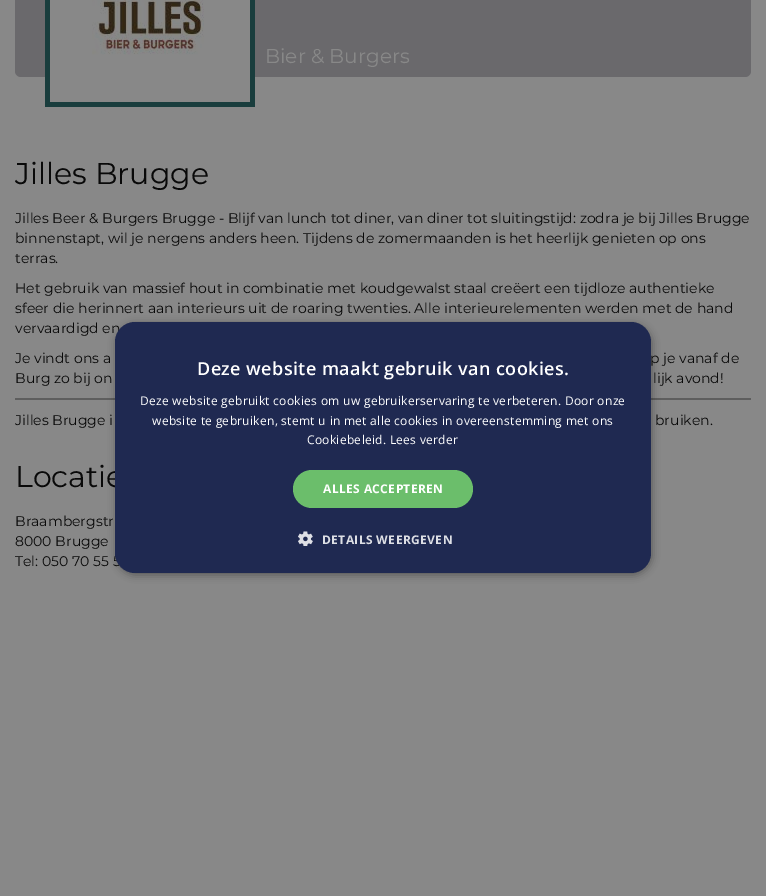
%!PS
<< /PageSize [766 896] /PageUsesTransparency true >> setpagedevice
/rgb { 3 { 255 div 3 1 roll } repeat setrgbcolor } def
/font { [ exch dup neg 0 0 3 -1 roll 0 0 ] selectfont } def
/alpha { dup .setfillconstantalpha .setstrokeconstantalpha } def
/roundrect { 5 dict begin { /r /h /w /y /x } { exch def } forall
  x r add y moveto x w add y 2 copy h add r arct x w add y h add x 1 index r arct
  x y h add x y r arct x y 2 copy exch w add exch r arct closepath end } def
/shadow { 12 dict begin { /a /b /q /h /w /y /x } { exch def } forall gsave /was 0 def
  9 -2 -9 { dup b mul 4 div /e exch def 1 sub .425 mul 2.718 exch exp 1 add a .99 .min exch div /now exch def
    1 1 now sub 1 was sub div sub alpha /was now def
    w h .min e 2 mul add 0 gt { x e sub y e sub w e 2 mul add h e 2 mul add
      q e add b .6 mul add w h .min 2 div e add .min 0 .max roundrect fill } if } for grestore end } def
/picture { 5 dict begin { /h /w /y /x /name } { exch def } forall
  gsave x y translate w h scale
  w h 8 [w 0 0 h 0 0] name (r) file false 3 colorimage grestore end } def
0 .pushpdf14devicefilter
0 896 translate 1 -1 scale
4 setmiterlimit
136 136 136 rgb
0 0 766 896 rectfill
128 128 128 rgb
15 -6 736 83 6 roundrect fill
0.2 alpha
16 11 29 rgb
15 -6 736 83 6 roundrect fill
1 alpha
25 61 61 rgb
45 0 210 107 rectfill
136 136 136 rgb
50 0 200 102 rectfill
(img/1.rgb) 92 0 112 55 picture
94 94 94 rgb
15 398 736 2 rectfill
0 0 0 rgb
116 324 536 251 20 4 0.35 shadow
/Montserrat-Regular 20 font
136 136 136 rgb
265 63 moveto (Bier & Burgers) show
/Montserrat-Regular 30 font
9 9 9 rgb
15 184 moveto (Jilles Brugge) show
/Montserrat-Regular 14 font
[
  [(Jilles Beer & Burgers Brugge - Blijf van lunch tot diner, van diner tot sluitingstijd: zodra je bij Jilles Brugge) 15 223]
  [(binnenstapt, wil je nergens anders heen. Tijdens de zomermaanden is het heerlijk genieten op ons) 15 243]
  [(terras.) 15 263]
  [(Het gebruik van massief hout in combinatie met koudgewalst staal creëert een tijdloze authentieke) 15 293]
  [(sfeer die herinnert aan interieurs uit de roaring twenties. Alle interieurelementen werden met de hand) 15 313]
  [(vervaardigd en) 15 333]
  [(Je vindt ons a) 15 363]
  [(p je vanaf de) 650 363]
  [(Burg zo bij on) 15 383]
  [(lijk avond!) 653 383]
  [(Jilles Brugge i) 15 425]
  [(bruiken.) 655 425]
] { aload pop moveto show } forall
/Montserrat-Regular 30 font
15 487 moveto (Locatie) show
/Montserrat-Regular 14 font
[
  [(Braambergstr) 15 526]
  [(8000 Brugge) 15 546]
  [(Tel: 050 70 55 5) 15 566]
] { aload pop moveto show } forall
31 41 81 rgb
115 322 536 251 20 roundrect fill
/OpenSans-SemiBold 18 font
255 255 255 rgb
197 375 moveto 0.4 0 (Deze website maakt gebruik van cookies.) ashow
/OpenSans-Regular 12 font
140 405 moveto 0.3 0 (Deze website gebruikt cookies om uw gebruikerservaring te verbeteren. Door onze) ashow
152 425 moveto 0.3 0 (website te gebruiken, stemt u in met alle cookies in overeenstemming met ons) ashow
307 444 moveto 0.3 0 (Cookiebeleid. Lees verder) ashow
107 190 107 rgb
293 470 180 38 19 roundrect fill
/OpenSans-Bold 12 font
255 255 255 rgb
323 493 moveto 0.4 0 (ALLES ACCEPTEREN) ashow
(img/2.rgb) 298 531 15 15 picture
221 223 229 rgb
322 544 moveto 0.4 0 (DETAILS WEERGEVEN) ashow
.poppdf14devicefilter showpage
